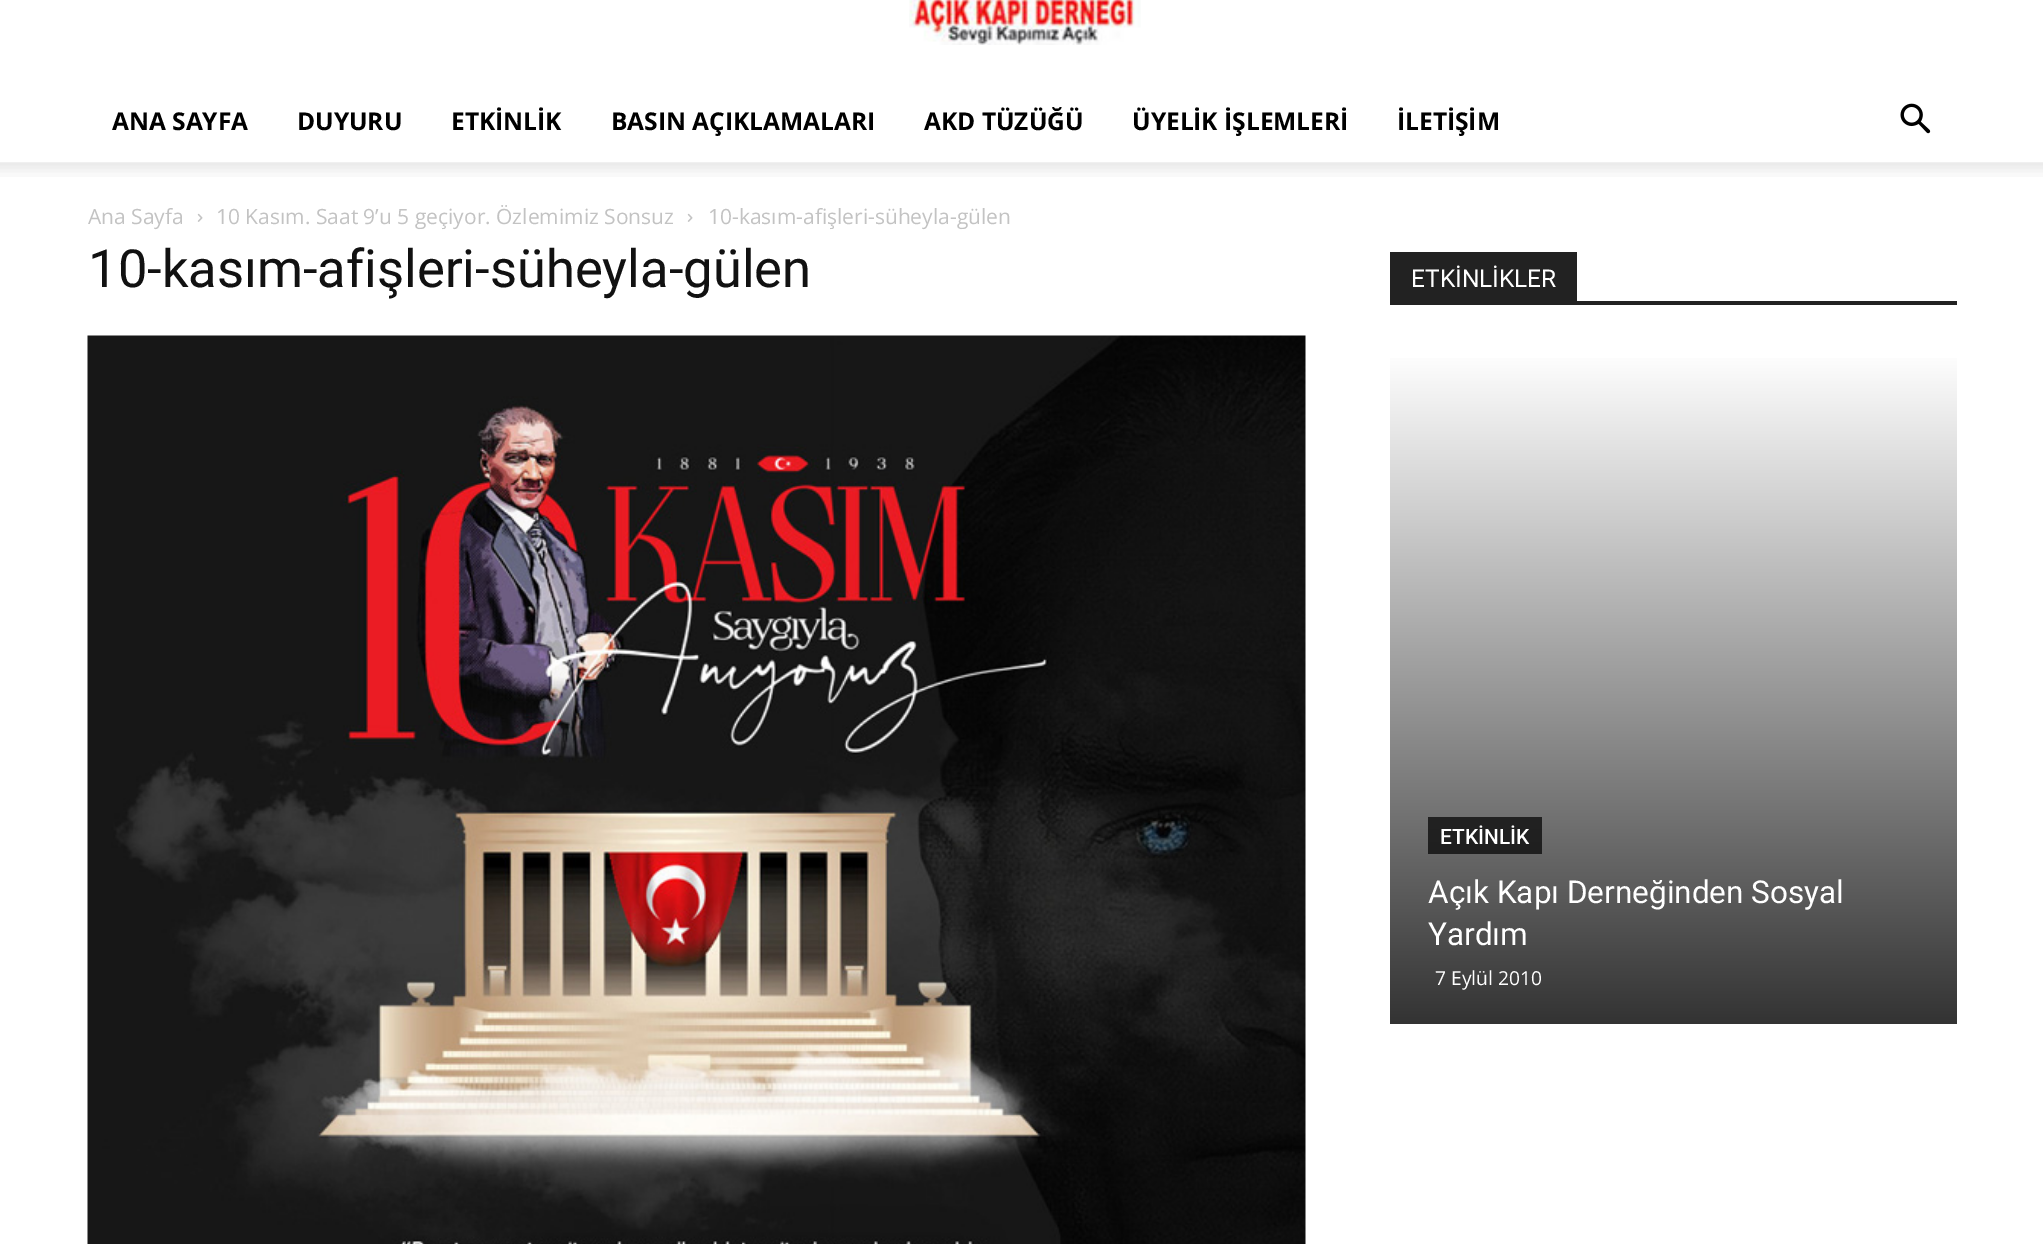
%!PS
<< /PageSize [2043 1244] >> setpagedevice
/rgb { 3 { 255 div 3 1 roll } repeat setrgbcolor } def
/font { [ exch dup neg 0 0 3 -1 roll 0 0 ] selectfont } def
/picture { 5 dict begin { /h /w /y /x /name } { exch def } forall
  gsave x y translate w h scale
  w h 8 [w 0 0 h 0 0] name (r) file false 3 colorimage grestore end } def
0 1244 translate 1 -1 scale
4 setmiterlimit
255 255 255 rgb
0 0 2043 1244 rectfill
(img/1.rgb) 909 0 232 45 picture
(img/2.rgb) 1900 103 31 31 picture
(img/3.rgb) 0 162 2043 15 picture
(img/4.rgb) 197 213 6 9 picture
(img/4.rgb) 687 213 6 9 picture
(img/5.rgb) 87 335 1219 909 picture
34 34 34 rgb
1390 301 567 4 rectfill
1390 252 187 49 rectfill
gsave 1390 358 moveto 1957 358 lineto 1957 1024 lineto 1390 1024 lineto closepath clip newpath
<< /ShadingType 2 /ColorSpace /DeviceRGB /Coords [1673 350 1673 1024] /Extend [true true] /Function << /FunctionType 2 /Domain [0 1] /C0 [1 1 1] /C1 [0.2 0.2 0.2] /N 1 >> >> shfill grestore
gsave 1428 817 moveto 1542 817 lineto 1542 854 lineto 1428 854 lineto closepath clip newpath
<< /ShadingType 2 /ColorSpace /DeviceRGB /Coords [1673 350 1673 1024] /Extend [true true] /Function << /FunctionType 2 /Domain [0 1] /C0 [0.302 0.302 0.302] /C1 [0.059 0.059 0.059] /N 1 >> >> shfill grestore
/OpenSans-Bold 24.5 font
0 0 0 rgb
[
  [(ANA SAYFA) 112 130]
  [(DUYURU) 297 130]
  [(ETKİNLİK) 451 130]
  [(BASIN AÇIKLAMALARI) 611 130]
  [(AKD TÜZÜĞÜ) 924 130]
  [(ÜYELİK İŞLEMLERİ) 1132 130]
  [(İLETİŞİM) 1397 130]
] { aload pop moveto show } forall
/OpenSans-Regular 21 font
195 195 195 rgb
[
  [(Ana Sayfa) 88 224]
  [(10 Kasım. Saat 9’u 5 geçiyor. Özlemimiz Sonsuz) 216 224]
  [(10-kasım-afişleri-süheyla-gülen) 708 224]
] { aload pop moveto show } forall
/Roboto-Regular 52.5 font
17 17 17 rgb
88 287 moveto (10-kasım-afişleri-süheyla-gülen) show
/Roboto-Regular 24.5 font
255 255 255 rgb
1411 287 moveto (ETKİNLİKLER) show
/Roboto-Medium 21 font
1440 844 moveto (ETKİNLİK) show
/Roboto-Regular 31.5 font
1428 903 moveto (Açık Kapı Derneğinden Sosyal) show
1428 945 moveto (Yardım) show
/OpenSans-Regular 19.25 font
1435 985 moveto (7 Eylül 2010) show
showpage
